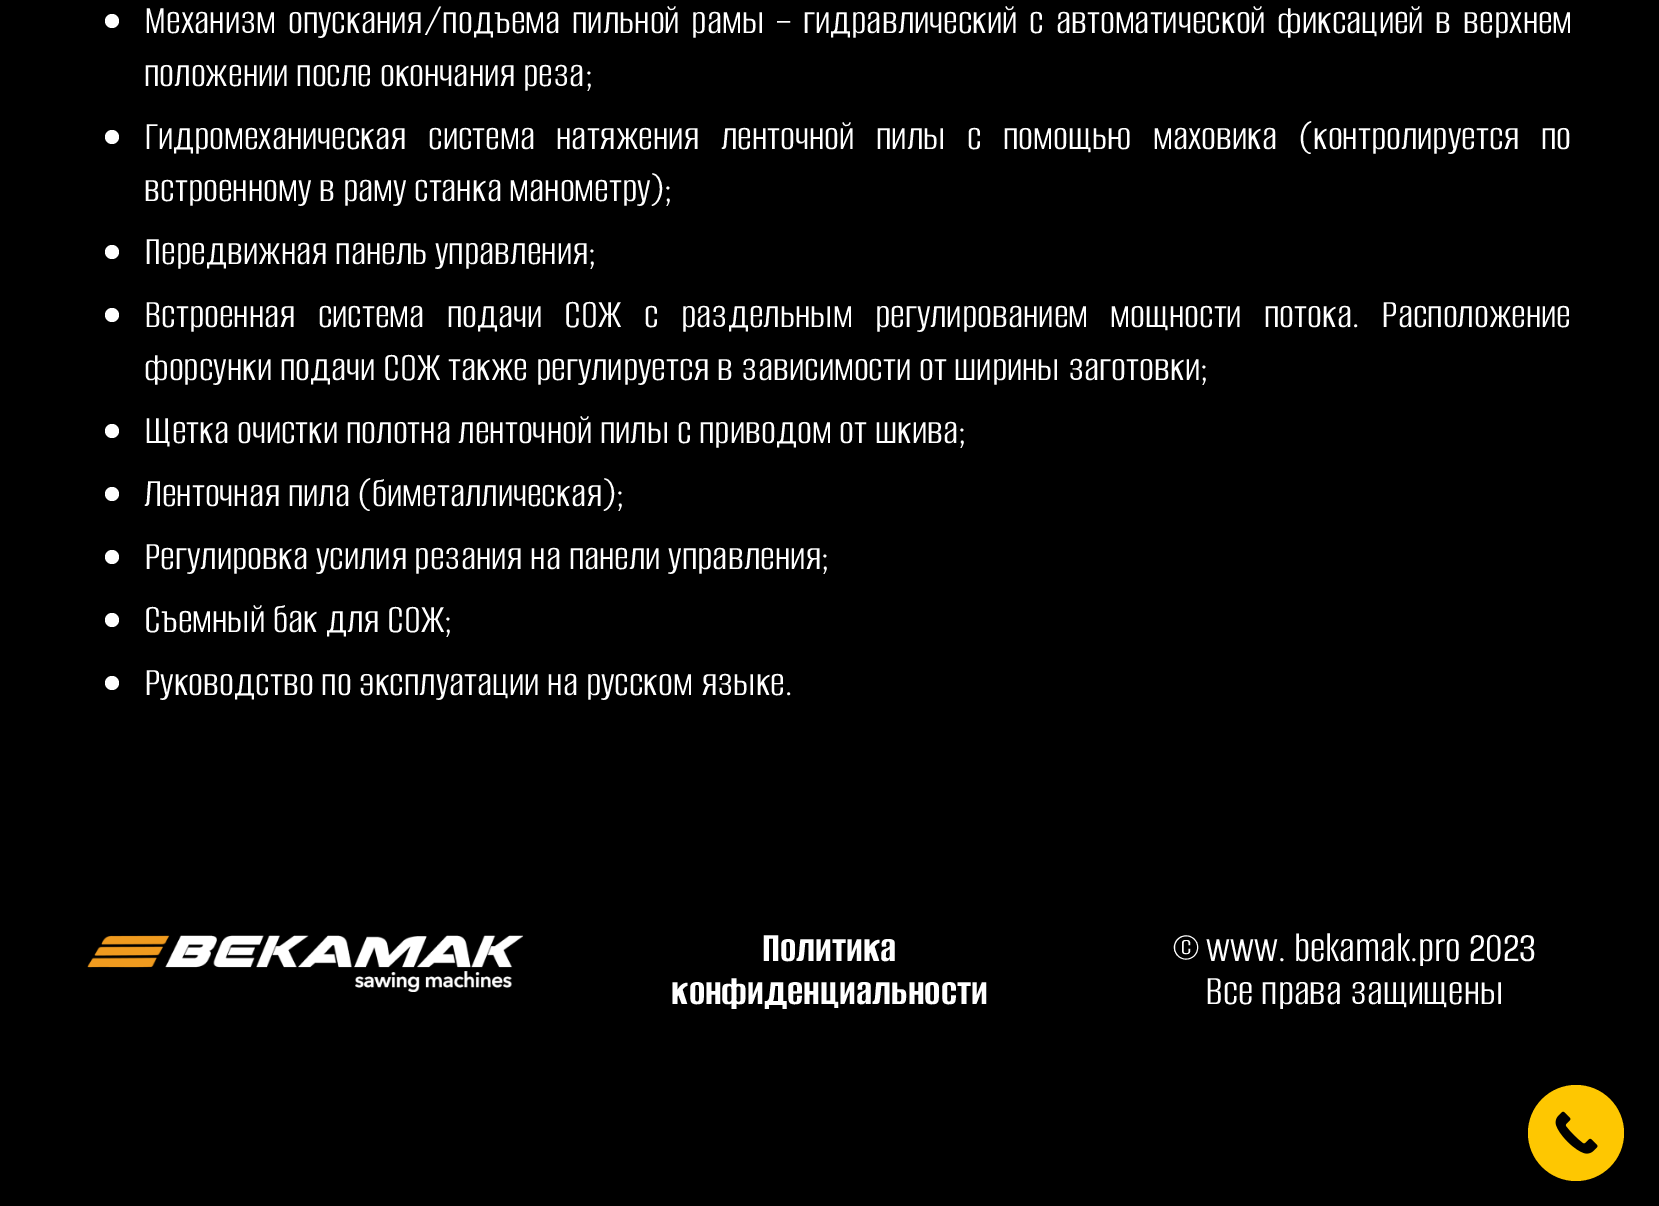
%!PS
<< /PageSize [1659 1206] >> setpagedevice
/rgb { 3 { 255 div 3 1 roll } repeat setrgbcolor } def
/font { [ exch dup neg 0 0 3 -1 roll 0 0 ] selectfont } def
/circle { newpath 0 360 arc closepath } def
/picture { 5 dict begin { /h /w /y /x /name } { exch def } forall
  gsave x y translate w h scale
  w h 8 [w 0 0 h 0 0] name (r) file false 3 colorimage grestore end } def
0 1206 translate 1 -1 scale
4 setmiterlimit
0 0 0 rgb
0 0 1659 1206 rectfill
255 255 255 rgb
112 21 7 circle fill
112 137 7 circle fill
112 252 7 circle fill
112 315 7 circle fill
112 431 7 circle fill
112 494 7 circle fill
112 557 7 circle fill
112 620 7 circle fill
112 683 7 circle fill
(img/1.rgb) 87 935 437 57 picture
254 199 1 rgb
1576 1133 48 circle fill
(img/2.rgb) 1555 1111 43 43 picture
/AlumniSans-Regular 42 font
255 255 255 rgb
144 33 moveto 4 0 32 (Механизм опускания/подъема пильной рамы – гидравлический с автоматической фиксацией в верхнем) widthshow
144 86 moveto (положении после окончания реза;) show
144 149 moveto 13.75 0 32 (Гидромеханическая система натяжения ленточной пилы с помощью маховика \(контролируется по) widthshow
144 201 moveto (встроенному в раму станка манометру\);) show
144 264 moveto (Передвижная панель управления;) show
144 327 moveto 14.5 0 32 (Встроенная система подачи СОЖ с раздельным регулированием мощности потока. Расположение) widthshow
[
  [(форсунки подачи СОЖ также регулируется в зависимости от ширины заготовки;) 144 380]
  [(Щетка очистки полотна ленточной пилы с приводом от шкива;) 144 443]
  [(Ленточная пила \(биметаллическая\);) 144 506]
  [(Регулировка усилия резания на панели управления;) 144 569]
  [(Съемный бак для СОЖ;) 144 632]
  [(Руководство по эксплуатации на русском языке.) 144 695]
] { aload pop moveto show } forall
/AlumniSans-Bold 43.75 font
762 961 moveto (Политика) show
671 1004 moveto (конфиденциальности) show
/AlumniSans-Regular 43.75 font
1172 961 moveto (© www. bekamak.pro 2023) show
1205 1004 moveto (Все права защищены) show
showpage
